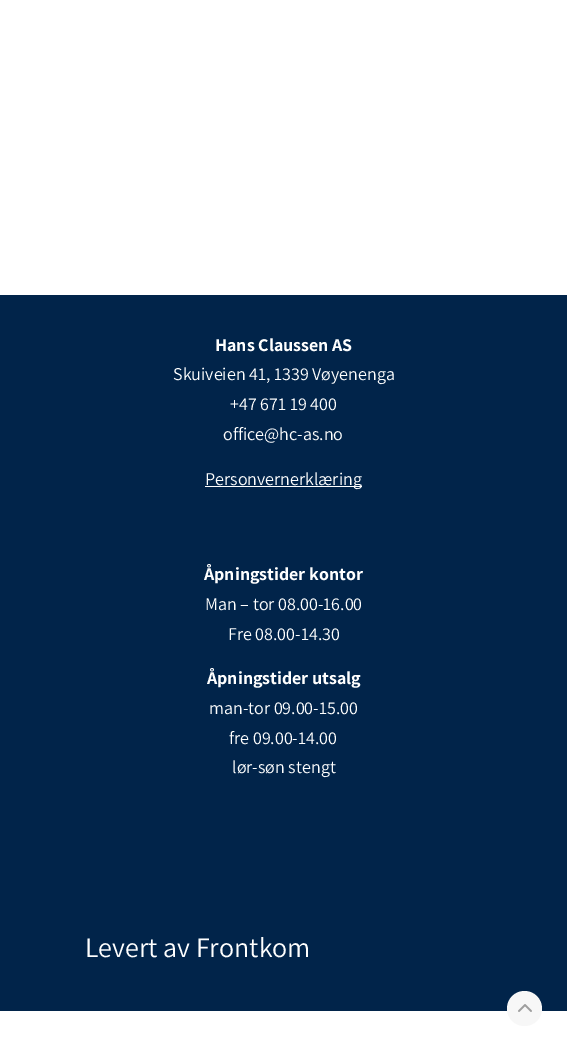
%!PS
<< /PageSize [567 1051] >> setpagedevice
/rgb { 3 { 255 div 3 1 roll } repeat setrgbcolor } def
/font { [ exch dup neg 0 0 3 -1 roll 0 0 ] selectfont } def
/circle { newpath 0 360 arc closepath } def
/picture { 5 dict begin { /h /w /y /x /name } { exch def } forall
  gsave x y translate w h scale
  w h 8 [w 0 0 h 0 0] name (r) file false 3 colorimage grestore end } def
0 1051 translate 1 -1 scale
4 setmiterlimit
255 255 255 rgb
0 0 567 1051 rectfill
1 36 74 rgb
0 295 567 716 rectfill
255 255 255 rgb
205 486 157 1 rectfill
247 247 247 rgb
524.5 1008.5 17.5 circle fill
(img/1.rgb) 518 1004 14 8 picture
/Assistant-Bold 18 font
255 255 255 rgb
215 351 moveto (Hans Claussen AS) show
/Assistant-Regular 18 font
[
  [(Skuiveien 41, 1339 Vøyenenga) 173 380]
  [(+47 671 19 400) 230 410]
  [(office@hc-as.no) 223 440]
  [(Personvernerklæring) 205 485]
] { aload pop moveto show } forall
/Assistant-Bold 18 font
204 580 moveto (Åpningstider kontor) show
/Assistant-Regular 18 font
205 610 moveto (Man – tor 08.00-16.00) show
228 640 moveto (Fre 08.00-14.30) show
/Assistant-Bold 18 font
207 684 moveto (Åpningstider utsalg) show
/Assistant-Regular 18 font
[
  [(man-tor 09.00-15.00) 209 714]
  [(fre 09.00-14.00) 229 744]
  [(lør-søn stengt) 232 773]
] { aload pop moveto show } forall
/Assistant-Regular 28 font
85 957 moveto (Levert av Frontkom) show
showpage
